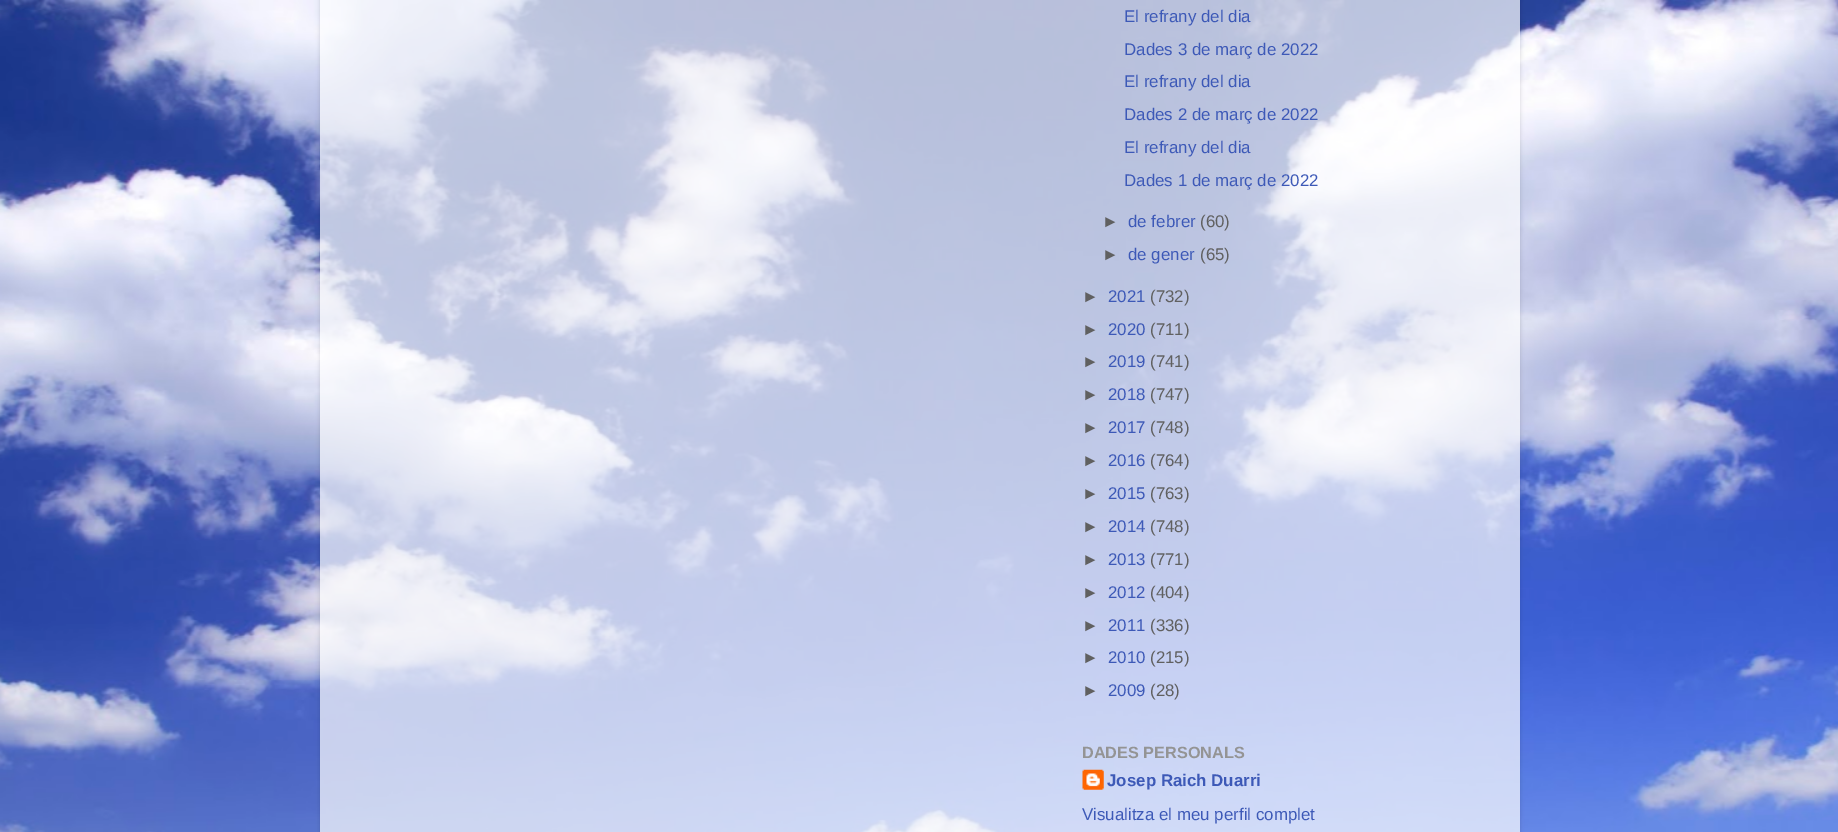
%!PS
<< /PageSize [1838 832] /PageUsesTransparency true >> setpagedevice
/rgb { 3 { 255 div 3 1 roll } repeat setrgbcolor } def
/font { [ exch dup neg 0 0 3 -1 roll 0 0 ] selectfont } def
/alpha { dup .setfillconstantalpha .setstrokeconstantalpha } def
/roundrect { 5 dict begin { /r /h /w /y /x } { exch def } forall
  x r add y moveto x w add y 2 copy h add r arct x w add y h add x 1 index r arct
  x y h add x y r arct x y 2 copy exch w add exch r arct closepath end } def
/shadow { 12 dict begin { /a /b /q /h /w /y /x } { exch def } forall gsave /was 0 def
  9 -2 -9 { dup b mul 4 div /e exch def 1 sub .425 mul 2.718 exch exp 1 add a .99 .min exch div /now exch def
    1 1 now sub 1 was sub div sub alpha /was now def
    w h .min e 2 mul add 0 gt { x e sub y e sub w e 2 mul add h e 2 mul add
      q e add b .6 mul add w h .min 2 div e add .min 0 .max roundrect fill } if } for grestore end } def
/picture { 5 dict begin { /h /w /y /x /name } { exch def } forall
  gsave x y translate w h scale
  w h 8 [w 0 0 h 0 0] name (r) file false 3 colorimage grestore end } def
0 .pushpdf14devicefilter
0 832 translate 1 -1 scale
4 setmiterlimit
255 255 255 rgb
0 0 1838 832 rectfill
(img/1.rgb) 0 0 1838 832 picture
gsave
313 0 moveto 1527 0 lineto 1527 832 lineto 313 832 lineto closepath 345 -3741 moveto 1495 -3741 lineto 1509 -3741 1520 -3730 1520 -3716 curveto 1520 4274 lineto 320 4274 lineto 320 -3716 lineto 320 -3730 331 -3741 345 -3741 curveto closepath eoclip newpath
0 0 0 rgb
320 -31 1200 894 25 2 0.15 shadow
grestore
0.7 alpha
320 0 1200 832 rectfill
1 alpha
(img/2.rgb) 1082 769 22 21 picture
/LiberationSans-Regular 16.9 font
61 89 183 rgb
[
  [(El refrany del dia) 1124 22]
  [(Dades 3 de març de 2022) 1124 55]
  [(El refrany del dia) 1124 87]
  [(Dades 2 de març de 2022) 1124 120]
  [(El refrany del dia) 1124 153]
  [(Dades 1 de març de 2022) 1124 186]
] { aload pop moveto show } forall
96 96 96 rgb
1102 227 moveto (►) show
61 89 183 rgb
1128 227 moveto (de febrer) show
96 96 96 rgb
1200 227 moveto (\(60\)) show
1102 260 moveto (►) show
61 89 183 rgb
1128 260 moveto (de gener) show
96 96 96 rgb
1200 260 moveto (\(65\)) show
1082 302 moveto (►) show
61 89 183 rgb
1108 302 moveto (2021) show
96 96 96 rgb
1150 302 moveto (\(732\)) show
1082 335 moveto (►) show
61 89 183 rgb
1108 335 moveto (2020) show
96 96 96 rgb
1150 335 moveto (\(711\)) show
1082 367 moveto (►) show
61 89 183 rgb
1108 367 moveto (2019) show
96 96 96 rgb
1150 367 moveto (\(741\)) show
1082 400 moveto (►) show
61 89 183 rgb
1108 400 moveto (2018) show
96 96 96 rgb
1150 400 moveto (\(747\)) show
1082 433 moveto (►) show
61 89 183 rgb
1108 433 moveto (2017) show
96 96 96 rgb
1150 433 moveto (\(748\)) show
1082 466 moveto (►) show
61 89 183 rgb
1108 466 moveto (2016) show
96 96 96 rgb
1150 466 moveto (\(764\)) show
1082 499 moveto (►) show
61 89 183 rgb
1108 499 moveto (2015) show
96 96 96 rgb
1150 499 moveto (\(763\)) show
1082 532 moveto (►) show
61 89 183 rgb
1108 532 moveto (2014) show
96 96 96 rgb
1150 532 moveto (\(748\)) show
1082 565 moveto (►) show
61 89 183 rgb
1108 565 moveto (2013) show
96 96 96 rgb
1150 565 moveto (\(771\)) show
1082 598 moveto (►) show
61 89 183 rgb
1108 598 moveto (2012) show
96 96 96 rgb
1150 598 moveto (\(404\)) show
1082 631 moveto (►) show
61 89 183 rgb
1108 631 moveto (2011) show
96 96 96 rgb
1150 631 moveto (\(336\)) show
1082 663 moveto (►) show
61 89 183 rgb
1108 663 moveto (2010) show
96 96 96 rgb
1150 663 moveto (\(215\)) show
1082 696 moveto (►) show
61 89 183 rgb
1108 696 moveto (2009) show
96 96 96 rgb
1150 696 moveto (\(28\)) show
/LiberationSans-Bold 16.25 font
148 148 148 rgb
1082 758 moveto (DADES PERSONALS) show
/LiberationSans-Bold 16.9 font
61 89 183 rgb
1107 786 moveto (Josep Raich Duarri) show
/LiberationSans-Regular 16.9 font
1082 820 moveto (Visualitza el meu perfil complet) show
.poppdf14devicefilter showpage
